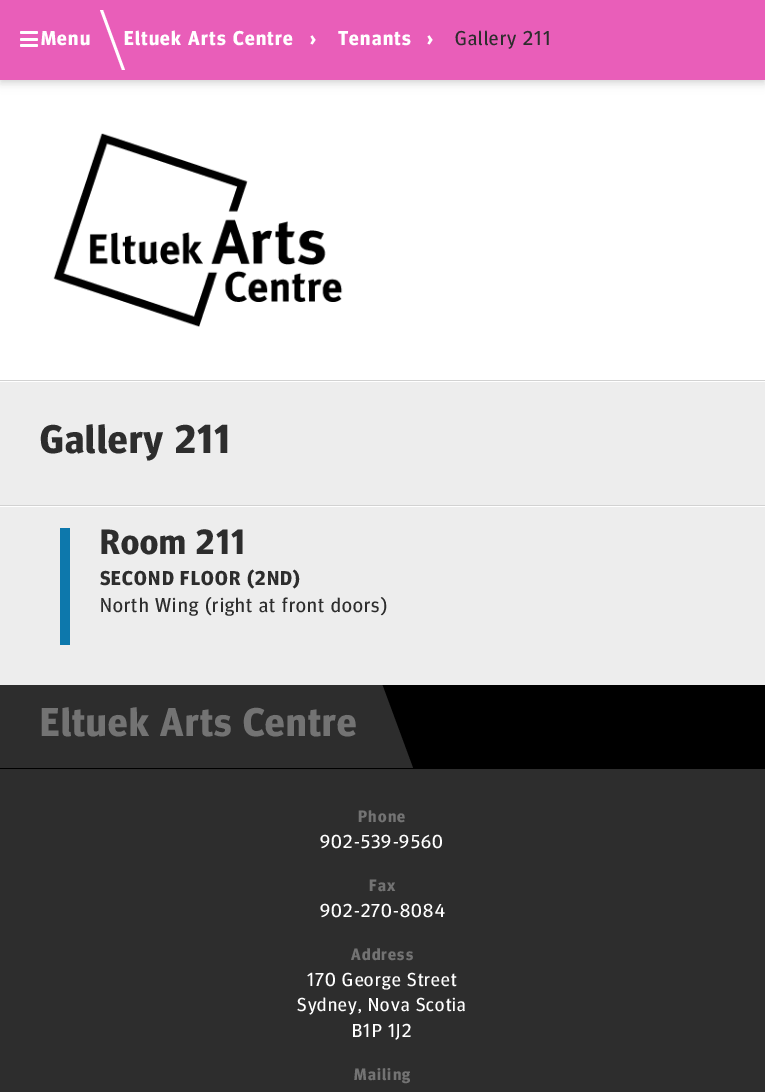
%!PS
<< /PageSize [765 1092] /PageUsesTransparency true >> setpagedevice
/rgb { 3 { 255 div 3 1 roll } repeat setrgbcolor } def
/font { [ exch dup neg 0 0 3 -1 roll 0 0 ] selectfont } def
/alpha { dup .setfillconstantalpha .setstrokeconstantalpha } def
/roundrect { 5 dict begin { /r /h /w /y /x } { exch def } forall
  x r add y moveto x w add y 2 copy h add r arct x w add y h add x 1 index r arct
  x y h add x y r arct x y 2 copy exch w add exch r arct closepath end } def
/shadow { 12 dict begin { /a /b /q /h /w /y /x } { exch def } forall gsave /was 0 def
  9 -2 -9 { dup b mul 4 div /e exch def 1 sub .425 mul 2.718 exch exp 1 add a .99 .min exch div /now exch def
    1 1 now sub 1 was sub div sub alpha /was now def
    w h .min e 2 mul add 0 gt { x e sub y e sub w e 2 mul add h e 2 mul add
      q e add b .6 mul add w h .min 2 div e add .min 0 .max roundrect fill } if } for grestore end } def
/picture { 5 dict begin { /h /w /y /x /name } { exch def } forall
  gsave x y translate w h scale
  w h 8 [w 0 0 h 0 0] name (r) file false 3 colorimage grestore end } def
0 .pushpdf14devicefilter
0 1092 translate 1 -1 scale
4 setmiterlimit
237 237 237 rgb
0 0 765 1092 rectfill
255 255 255 rgb
0 80 765 300 rectfill
0 0 0 rgb
0 1 765 80 0 6 0.08 shadow
0 5 765 80 0 3 0.06 shadow
1 4 763 77 0 2.5 0.06 shadow
233 94 185 rgb
0 0 765 80 rectfill
255 255 255 rgb
100 10 moveto 103 10 lineto 125 70 lineto 122 70 lineto closepath fill
20 31 18 3 1.5 roundrect fill
20 38 18 3 1.5 roundrect fill
20 44 18 3 1.5 roundrect fill
(img/1.rgb) 53 133 290 194 picture
[
  [0 380 765 1 210 210 210]
  [0 506 765 1 255 255 255]
  [0 381 765 1 255 255 255]
  [0 505 765 1 210 210 210]
  [60 528 10 117 13 120 172]
  [0 769 765 323 45 45 45]
  [0 685 765 84 0 0 0]
] { aload pop rgb rectfill } forall
gsave
0 685 765 84 rectclip
45 45 45 rgb
-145 684 moveto 382 684 lineto 413 768 lineto -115 768 lineto closepath fill
grestore
/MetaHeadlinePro-Bold 20 font
255 255 255 rgb
41 45 moveto 1.25 0 (Menu) ashow
124 45 moveto 1.25 0 (Eltuek Arts Centre) ashow
310 45 moveto 1.25 0 (›) ashow
338 45 moveto 1.25 0 (Tenants) ashow
427 45 moveto 1.25 0 (›) ashow
/MetaHeadlinePro-Regular 20 font
45 45 45 rgb
455 45 moveto 1.25 0 (Gallery 211) ashow
/MetaHeadlinePro-Bold 40 font
40 453 moveto 1.25 0 (Gallery 211) ashow
/MetaHeadlinePro-Bold 35 font
100 554 moveto 1.25 0 (Room 211) ashow
/MetaHeadlinePro-Bold 20 font
100 585 moveto 1.25 0 (SECOND FLOOR \(2ND\)) ashow
/MetaHeadlinePro-Regular 20 font
100 612 moveto 1.25 0 (North Wing \(right at front doors\)) ashow
/MetaHeadlinePro-Bold 40 font
115 115 115 rgb
40 736 moveto 1.25 0 (Eltuek Arts Centre) ashow
/MetaHeadlinePro-Bold 16.5 font
358 822 moveto 1.25 0 (Phone) ashow
/MetaHeadlinePro-Regular 18.75 font
255 255 255 rgb
320 848 moveto 1.25 0 (902-539-9560) ashow
/MetaHeadlinePro-Bold 16.5 font
115 115 115 rgb
369 891 moveto 1.25 0 (Fax) ashow
/MetaHeadlinePro-Regular 18.75 font
255 255 255 rgb
320 917 moveto 1.25 0 (902-270-8084) ashow
/MetaHeadlinePro-Bold 16.5 font
115 115 115 rgb
351 960 moveto 1.25 0 (Address) ashow
/MetaHeadlinePro-Regular 18.75 font
255 255 255 rgb
307 986 moveto 1.25 0 (170 George Street) ashow
297 1011 moveto 1.25 0 (Sydney, Nova Scotia) ashow
352 1037 moveto 1.25 0 (B1P 1J2) ashow
/MetaHeadlinePro-Bold 16.5 font
115 115 115 rgb
354 1080 moveto 1.25 0 (Mailing) ashow
.poppdf14devicefilter showpage
